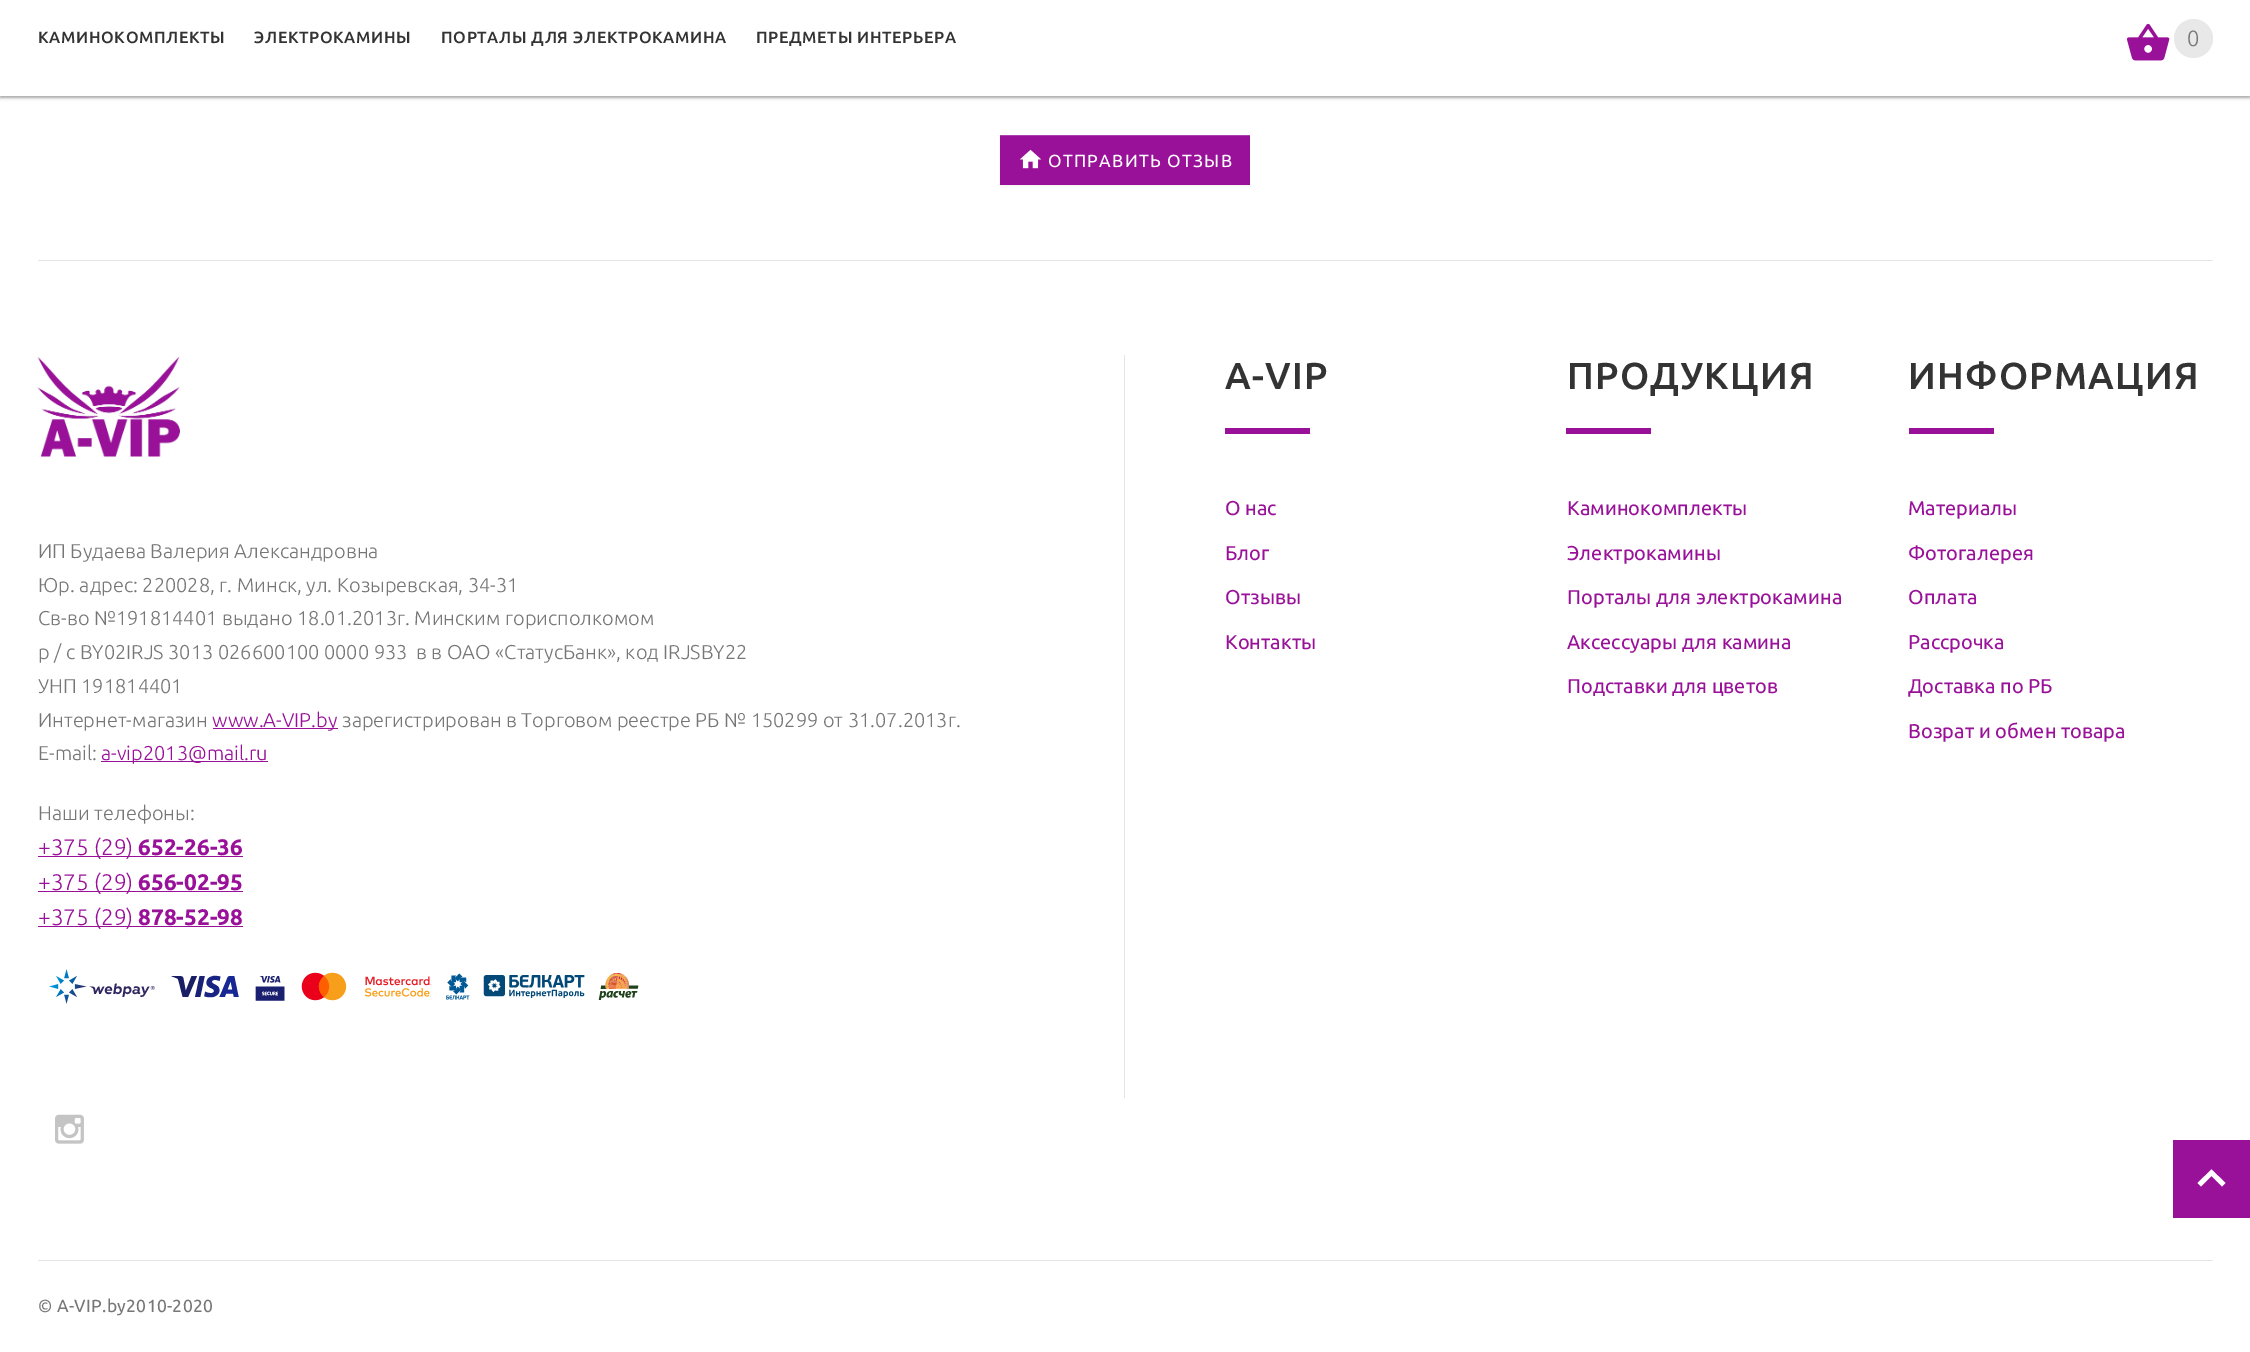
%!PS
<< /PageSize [2250 1352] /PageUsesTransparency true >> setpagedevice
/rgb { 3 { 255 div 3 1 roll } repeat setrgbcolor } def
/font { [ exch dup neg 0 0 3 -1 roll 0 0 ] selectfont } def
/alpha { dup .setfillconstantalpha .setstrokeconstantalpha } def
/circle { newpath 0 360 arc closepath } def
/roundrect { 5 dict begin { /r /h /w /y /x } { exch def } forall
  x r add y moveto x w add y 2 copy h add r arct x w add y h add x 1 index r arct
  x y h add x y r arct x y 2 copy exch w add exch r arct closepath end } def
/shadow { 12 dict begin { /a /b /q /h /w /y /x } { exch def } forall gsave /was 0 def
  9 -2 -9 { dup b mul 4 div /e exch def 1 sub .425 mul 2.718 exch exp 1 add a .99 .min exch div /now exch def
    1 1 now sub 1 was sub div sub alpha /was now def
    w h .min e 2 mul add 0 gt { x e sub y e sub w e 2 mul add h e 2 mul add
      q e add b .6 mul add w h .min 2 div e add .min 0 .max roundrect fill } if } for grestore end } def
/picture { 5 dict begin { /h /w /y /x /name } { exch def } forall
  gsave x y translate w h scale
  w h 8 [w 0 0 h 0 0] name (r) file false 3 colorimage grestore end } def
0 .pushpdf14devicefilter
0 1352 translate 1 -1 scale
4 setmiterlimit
255 255 255 rgb
0 0 2250 1352 rectfill
0 0 0 rgb
0 1 2250 97 0 1 0.24 shadow
0 1 2250 97 0 2 0.12 shadow
255 255 255 rgb
0 0 2250 96 rectfill
(img/1.rgb) 2126 23 44 38 picture
232 232 232 rgb
2193.5 38.5 19.5 circle fill
229 229 229 rgb
38 260 2175 1 rectfill
0 0 0 rgb
1000 136 250 50 0 1 0.05 shadow
153 17 153 rgb
1000 136 250 49 rectfill
173 65 173 rgb
1000 135 250 1 rectfill
(img/2.rgb) 1019 149 23 20 picture
(img/3.rgb) 37 356 143 101 picture
[
  [1124 355 1 743 229 229 229]
  [213 728 125 1 153 17 153]
  [101 761 167 1 153 17 153]
  [38 856 205 1 153 17 153]
  [38 891 205 1 153 17 153]
  [38 926 205 1 153 17 153]
] { aload pop rgb rectfill } forall
(img/4.rgb) 49 969 590 35 picture
[
  [1225 428 85 6 153 17 153]
  [1566 428 85 6 153 17 153]
  [1909 428 85 6 153 17 153]
] { aload pop rgb rectfill } forall
(img/5.rgb) 55 1114 29 30 picture
229 229 229 rgb
38 1260 2175 1 rectfill
153 17 153 rgb
2173 1140 77 78 rectfill
255 255 255 rgb
2201 1186.5 moveto 2197.5 1183 lineto 2211.5 1169.5 lineto 2225.5 1183 lineto 2222 1186.5 lineto 2211.5 1176 lineto closepath fill
/Ubuntu-Medium 16.25 font
51 51 51 rgb
38 43 moveto 0.65 0 (КАМИНОКОМПЛЕКТЫ) ashow
254 43 moveto 0.65 0 (ЭЛЕКТРОКАМИНЫ) ashow
441 43 moveto 0.65 0 (ПОРТАЛЫ ДЛЯ ЭЛЕКТРОКАМИНА) ashow
756 43 moveto 0.65 0 (ПРЕДМЕТЫ ИНТЕРЬЕРА) ashow
/Ubuntu-Light 22 font
119 119 119 rgb
2187 46 moveto (0) show
/Ubuntu-Regular 17.5 font
255 255 255 rgb
1048 167 moveto 1.25 0 (ОТПРАВИТЬ ОТЗЫВ) ashow
/Ubuntu-Light 20 font
119 119 119 rgb
[
  [(ИП Будаева Валерия Александровна) 38 558]
  [(Юр. адрес: 220028, г. Минск, ул. Козыревская, 34-31) 38 592]
  [(Св-во №191814401 выдано 18.01.2013г. Минским горисполкомом) 38 625]
  [(р / с BY02IRJS 3013 026600100 0000 933) 38 659]
  [(в в ОАО «СтатусБанк», код IRJSBY22) 416 659]
  [(УНП 191814401) 38 693]
  [(Интернет-магазин) 38 727]
] { aload pop moveto show } forall
153 17 153 rgb
212 727 moveto (www.A-VIP.by) show
119 119 119 rgb
342 727 moveto (зарегистрирован в Торговом реестре РБ № 150299 от 31.07.2013г.) show
38 760 moveto (E-mail:) show
153 17 153 rgb
101 760 moveto (a-vip2013@mail.ru) show
119 119 119 rgb
38 820 moveto (Наши телефоны:) show
/Ubuntu-Light 22.5 font
153 17 153 rgb
38 855 moveto (+375 \(29\)) show
/Ubuntu-Bold 22.5 font
138 855 moveto (652-26-36) show
/Ubuntu-Light 22.5 font
38 890 moveto (+375 \(29\)) show
/Ubuntu-Bold 22.5 font
138 890 moveto (656-02-95) show
/Ubuntu-Light 22.5 font
38 925 moveto (+375 \(29\)) show
/Ubuntu-Bold 22.5 font
138 925 moveto (878-52-98) show
/Ubuntu-Medium 37.5 font
51 51 51 rgb
1225 389 moveto 1.25 0 (A-VIP) ashow
/Ubuntu-Regular 20 font
153 17 153 rgb
[
  [(О нас) 1225 515]
  [(Блог) 1225 560]
  [(Отзывы) 1225 604]
  [(Контакты) 1225 649]
] { aload pop moveto show } forall
/Ubuntu-Medium 37.5 font
51 51 51 rgb
1567 389 moveto 1.25 0 (ПРОДУКЦИЯ) ashow
/Ubuntu-Regular 20 font
153 17 153 rgb
[
  [(Каминокомплекты) 1567 515]
  [(Электрокамины) 1567 560]
  [(Порталы для электрокамина) 1567 604]
  [(Аксессуары для камина) 1567 649]
  [(Подставки для цветов) 1567 693]
] { aload pop moveto show } forall
/Ubuntu-Medium 37.5 font
51 51 51 rgb
1908 389 moveto 1.25 0 (ИНФОРМАЦИЯ) ashow
/Ubuntu-Regular 20 font
153 17 153 rgb
[
  [(Материалы) 1908 515]
  [(Фотогалерея) 1908 560]
  [(Оплата) 1908 604]
  [(Рассрочка) 1908 649]
  [(Доставка по РБ) 1908 693]
  [(Возрат и обмен товара) 1908 738]
] { aload pop moveto show } forall
/Ubuntu-Regular 17.5 font
119 119 119 rgb
38 1312 moveto 0.3 0 (© A-VIP.by2010-2020) ashow
.poppdf14devicefilter showpage
